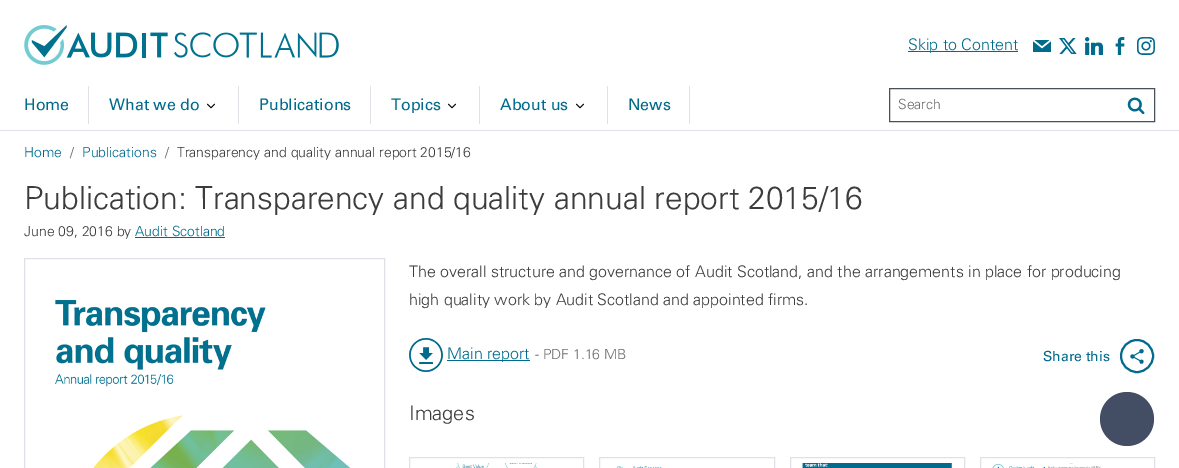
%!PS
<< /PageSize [1179 468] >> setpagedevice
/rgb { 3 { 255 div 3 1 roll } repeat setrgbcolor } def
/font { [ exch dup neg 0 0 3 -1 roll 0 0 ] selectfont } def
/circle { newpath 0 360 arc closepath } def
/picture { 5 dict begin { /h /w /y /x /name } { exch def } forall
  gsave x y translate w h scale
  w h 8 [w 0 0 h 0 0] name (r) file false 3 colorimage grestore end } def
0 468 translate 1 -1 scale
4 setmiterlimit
255 255 255 rgb
0 0 1179 468 rectfill
222 226 230 rgb
0 130 1179 1 rectfill
(img/1.rgb) 24 25 315 40 picture
0 107 141 rgb
908 51 110 1 rectfill
(img/2.rgb) 1033 40 18 12 picture
(img/3.rgb) 1059 38 18 16 picture
(img/4.rgb) 1085 37 18 18 picture
(img/5.rgb) 1115 37 10 18 picture
(img/6.rgb) 1137 37 18 18 picture
222 226 230 rgb
88 86 1 38 rectfill
(img/7.rgb) 207 103 8 6 picture
238 86 1 38 rectfill
370 86 1 38 rectfill
(img/7.rgb) 448 103 8 6 picture
479 86 1 38 rectfill
(img/7.rgb) 576 103 8 6 picture
607 86 1 38 rectfill
689 86 1 38 rectfill
73 80 87 rgb
889.5 88.5 265 33 rectstroke
(img/8.rgb) 1127 97 18 17 picture
0 107 141 rgb
135 237 90 1 rectfill
222 226 230 rgb
24.5 258.5 360 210 rectstroke
(img/9.rgb) 55 299 296 169 picture
(img/10.rgb) 409 338 34 34 picture
0 107 141 rgb
447 360 83 1 rectfill
2 setlinewidth
1137 356 16 circle stroke
(img/11.rgb) 1130 349 14 15 picture
222 226 230 rgb
1 setlinewidth
409.5 457.5 174 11 rectstroke
(img/12.rgb) 456 463 82 5 picture
599.5 457.5 175 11 rectstroke
(img/13.rgb) 616 466 46 2 picture
790.5 457.5 174 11 rectstroke
(img/14.rgb) 802 463 150 5 picture
980.5 457.5 174 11 rectstroke
(img/15.rgb) 992 463 109 5 picture
67 78 101 rgb
1127 419 27 circle fill
/Univers-Light 16 font
0 107 141 rgb
908 50 moveto (Skip to Content) show
/Univers-Regular 16 font
[
  [(Home) 24 110]
  [(What we do) 109 110]
  [(Publications) 259 110]
  [(Topics) 391 110]
  [(About us) 500 110]
  [(News) 628 110]
] { aload pop moveto show } forall
/Univers-Light 14 font
109 109 108 rgb
898 109 moveto (Search) show
0 107 141 rgb
24 157 moveto (Home) show
109 109 108 rgb
70 157 moveto (/) show
0 107 141 rgb
82 157 moveto (Publications) show
109 109 108 rgb
165 157 moveto (/) show
60 60 59 rgb
177 157 moveto (Transparency and quality annual report 2015/16) show
/Univers-Light 31.8 font
24 209 moveto (Publication: Transparency and quality annual report 2015/16) show
/Univers-Light 14 font
24 236 moveto (June 09, 2016 by) show
0 107 141 rgb
135 236 moveto (Audit Scotland) show
/Univers-Light 16 font
60 60 59 rgb
409 277 moveto (The overall structure and governance of Audit Scotland, and the arrangements in place for producing) show
409 305 moveto (high quality work by Audit Scotland and appointed firms.) show
0 107 141 rgb
447 359 moveto (Main report) show
/Univers-Light 14 font
109 109 108 rgb
535 359 moveto (- PDF) show
573 359 moveto (1.16 MB) show
/Univers-Regular 14 font
0 107 141 rgb
1043 361 moveto (Share this) show
/Univers-Light 20 font
60 60 59 rgb
409 420 moveto (Images) show
showpage
